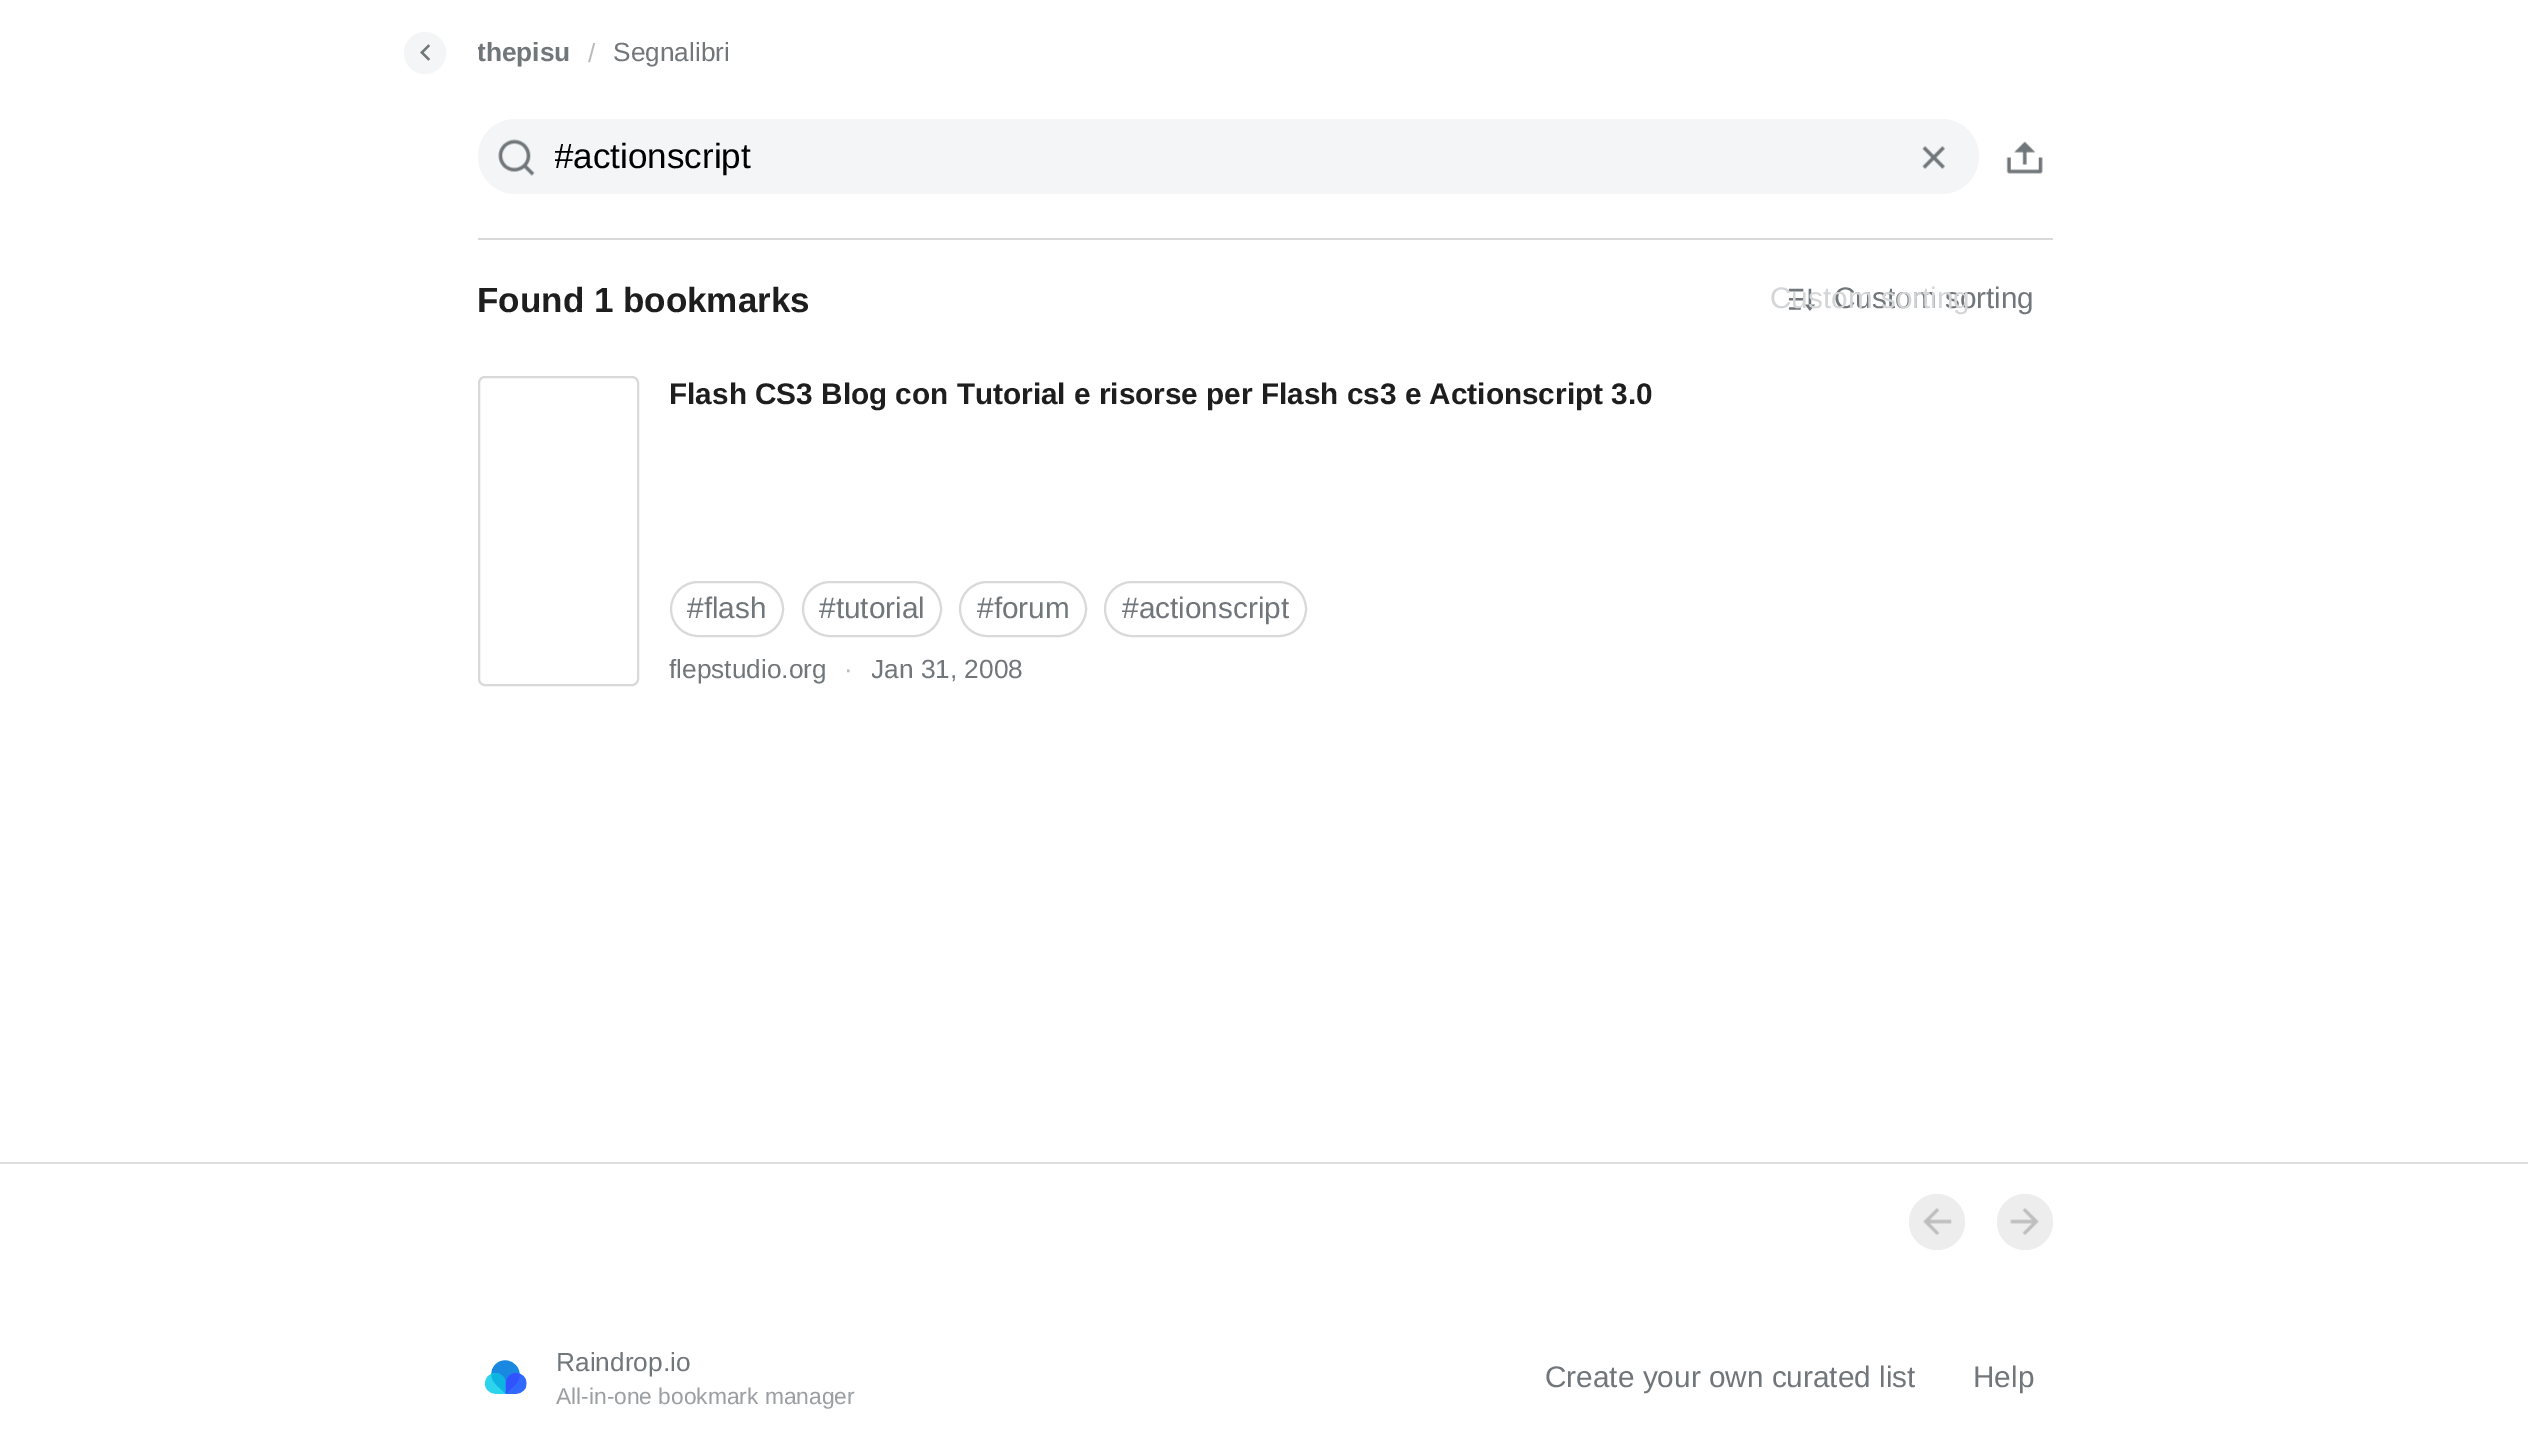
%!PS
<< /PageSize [2528 1443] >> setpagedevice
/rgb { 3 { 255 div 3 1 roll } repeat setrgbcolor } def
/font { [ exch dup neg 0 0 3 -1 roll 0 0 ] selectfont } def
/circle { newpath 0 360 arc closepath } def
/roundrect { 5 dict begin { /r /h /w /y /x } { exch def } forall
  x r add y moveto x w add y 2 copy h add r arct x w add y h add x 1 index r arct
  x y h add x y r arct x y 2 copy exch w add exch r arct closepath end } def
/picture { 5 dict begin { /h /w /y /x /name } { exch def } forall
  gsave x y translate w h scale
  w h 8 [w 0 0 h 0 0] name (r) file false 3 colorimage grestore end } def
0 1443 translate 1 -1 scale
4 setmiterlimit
255 255 255 rgb
0 0 2528 1443 rectfill
243 245 246 rgb
425 53 21 circle fill
(img/1.rgb) 420 44 10 17 picture
478 119 1501 75 37.5 roundrect fill
(img/2.rgb) 498 139 37 37 picture
(img/3.rgb) 1922 146 23 23 picture
(img/4.rgb) 2006 141 37 33 picture
217 217 217 rgb
478 238 moveto 478 240 lineto 2053 240 lineto 2053 343 lineto 2053 238 lineto closepath fill
(img/5.rgb) 1788 288 27 23 picture
2 setlinewidth
479 377 159 308 6 roundrect stroke
671 582 112 54 27 roundrect stroke
803 582 138 54 27 roundrect stroke
960 582 126 54 27 roundrect stroke
1105 582 201 54 27 roundrect stroke
222 222 222 rgb
0 1162 2528 2 rectfill
237 237 237 rgb
1937 1222 28 circle fill
(img/6.rgb) 1923 1208 29 27 picture
2025 1222 28 circle fill
(img/7.rgb) 2010 1208 29 27 picture
(img/8.rgb) 484 1360 43 34 picture
gsave
478 32 93 42 7 roundrect clip newpath
/LiberationSans-Bold 26.25 font
112 118 122 rgb
477 61 moveto (thepisu) show
grestore
/LiberationSans-Regular 26.25 font
184 187 189 rgb
588 62 moveto (/) show
112 118 122 rgb
613 61 moveto (Segnalibri) show
gsave
555 137 1333 40 rectclip
/LiberationSans-Regular 35 font
0 0 0 rgb
554 168 moveto (#actionscript) show
grestore
/LiberationSans-Bold 35 font
30 30 30 rgb
477 312 moveto (Found 1 bookmarks) show
/LiberationSans-Regular 29.75 font
112 118 122 rgb
1834 308 moveto (Custom sorting) show
211 213 214 rgb
1770 308 moveto (Custom sorting) show
/LiberationSans-Bold 29.75 font
30 30 30 rgb
669 404 moveto (Flash CS3 Blog con Tutorial e risorse per Flash cs3 e Actionscript 3.0) show
/LiberationSans-Regular 29.75 font
112 118 122 rgb
[
  [(#flash) 687 618]
  [(#tutorial) 819 618]
  [(#forum) 977 618]
  [(#actionscript) 1122 618]
] { aload pop moveto show } forall
/LiberationSans-Regular 26.25 font
669 678 moveto (flepstudio.org) show
184 187 189 rgb
844 678 moveto (·) show
gsave
872 651 150 35 rectclip
112 118 122 rgb
871 678 moveto (Jan 31, 2008) show
grestore
112 118 122 rgb
556 1371 moveto (Raindrop.io) show
/LiberationSans-Regular 22.75 font
155 159 162 rgb
556 1404 moveto (All-in-one bookmark manager) show
/LiberationSans-Regular 29.75 font
112 118 122 rgb
1545 1387 moveto (Create your own curated list) show
1973 1387 moveto (Help) show
showpage
